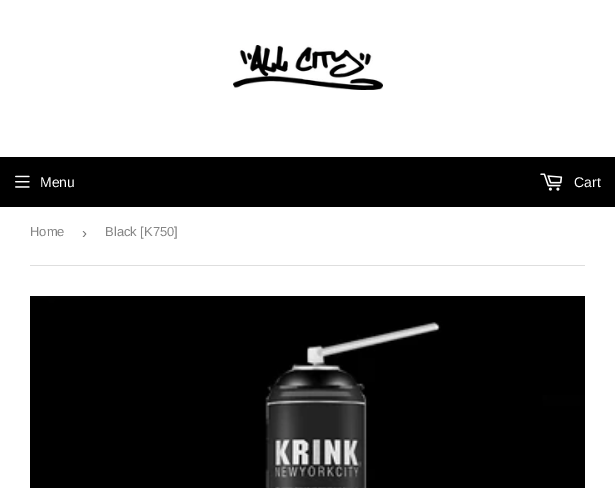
%!PS
<< /PageSize [615 488] >> setpagedevice
/rgb { 3 { 255 div 3 1 roll } repeat setrgbcolor } def
/font { [ exch dup neg 0 0 3 -1 roll 0 0 ] selectfont } def
/picture { 5 dict begin { /h /w /y /x /name } { exch def } forall
  gsave x y translate w h scale
  w h 8 [w 0 0 h 0 0] name (r) file false 3 colorimage grestore end } def
0 488 translate 1 -1 scale
4 setmiterlimit
255 255 255 rgb
0 0 615 488 rectfill
(img/1.rgb) 233 45 150 45 picture
0 0 0 rgb
0 157 615 50 rectfill
(img/2.rgb) 15 175 15 13 picture
(img/3.rgb) 540 173 23 18 picture
222 222 222 rgb
30 265 555 1 rectfill
(img/4.rgb) 30 296 555 192 picture
/LiberationSans-Regular 14 font
255 255 255 rgb
40 187 moveto (Menu) show
574 187 moveto (Cart) show
/LiberationSans-Regular 13 font
133 133 133 rgb
30 236 moveto (Home) show
/LiberationSans-Regular 15 font
118 118 118 rgb
82 238 moveto (›) show
/LiberationSans-Regular 13 font
133 133 133 rgb
105 236 moveto (Black [K750]) show
showpage
